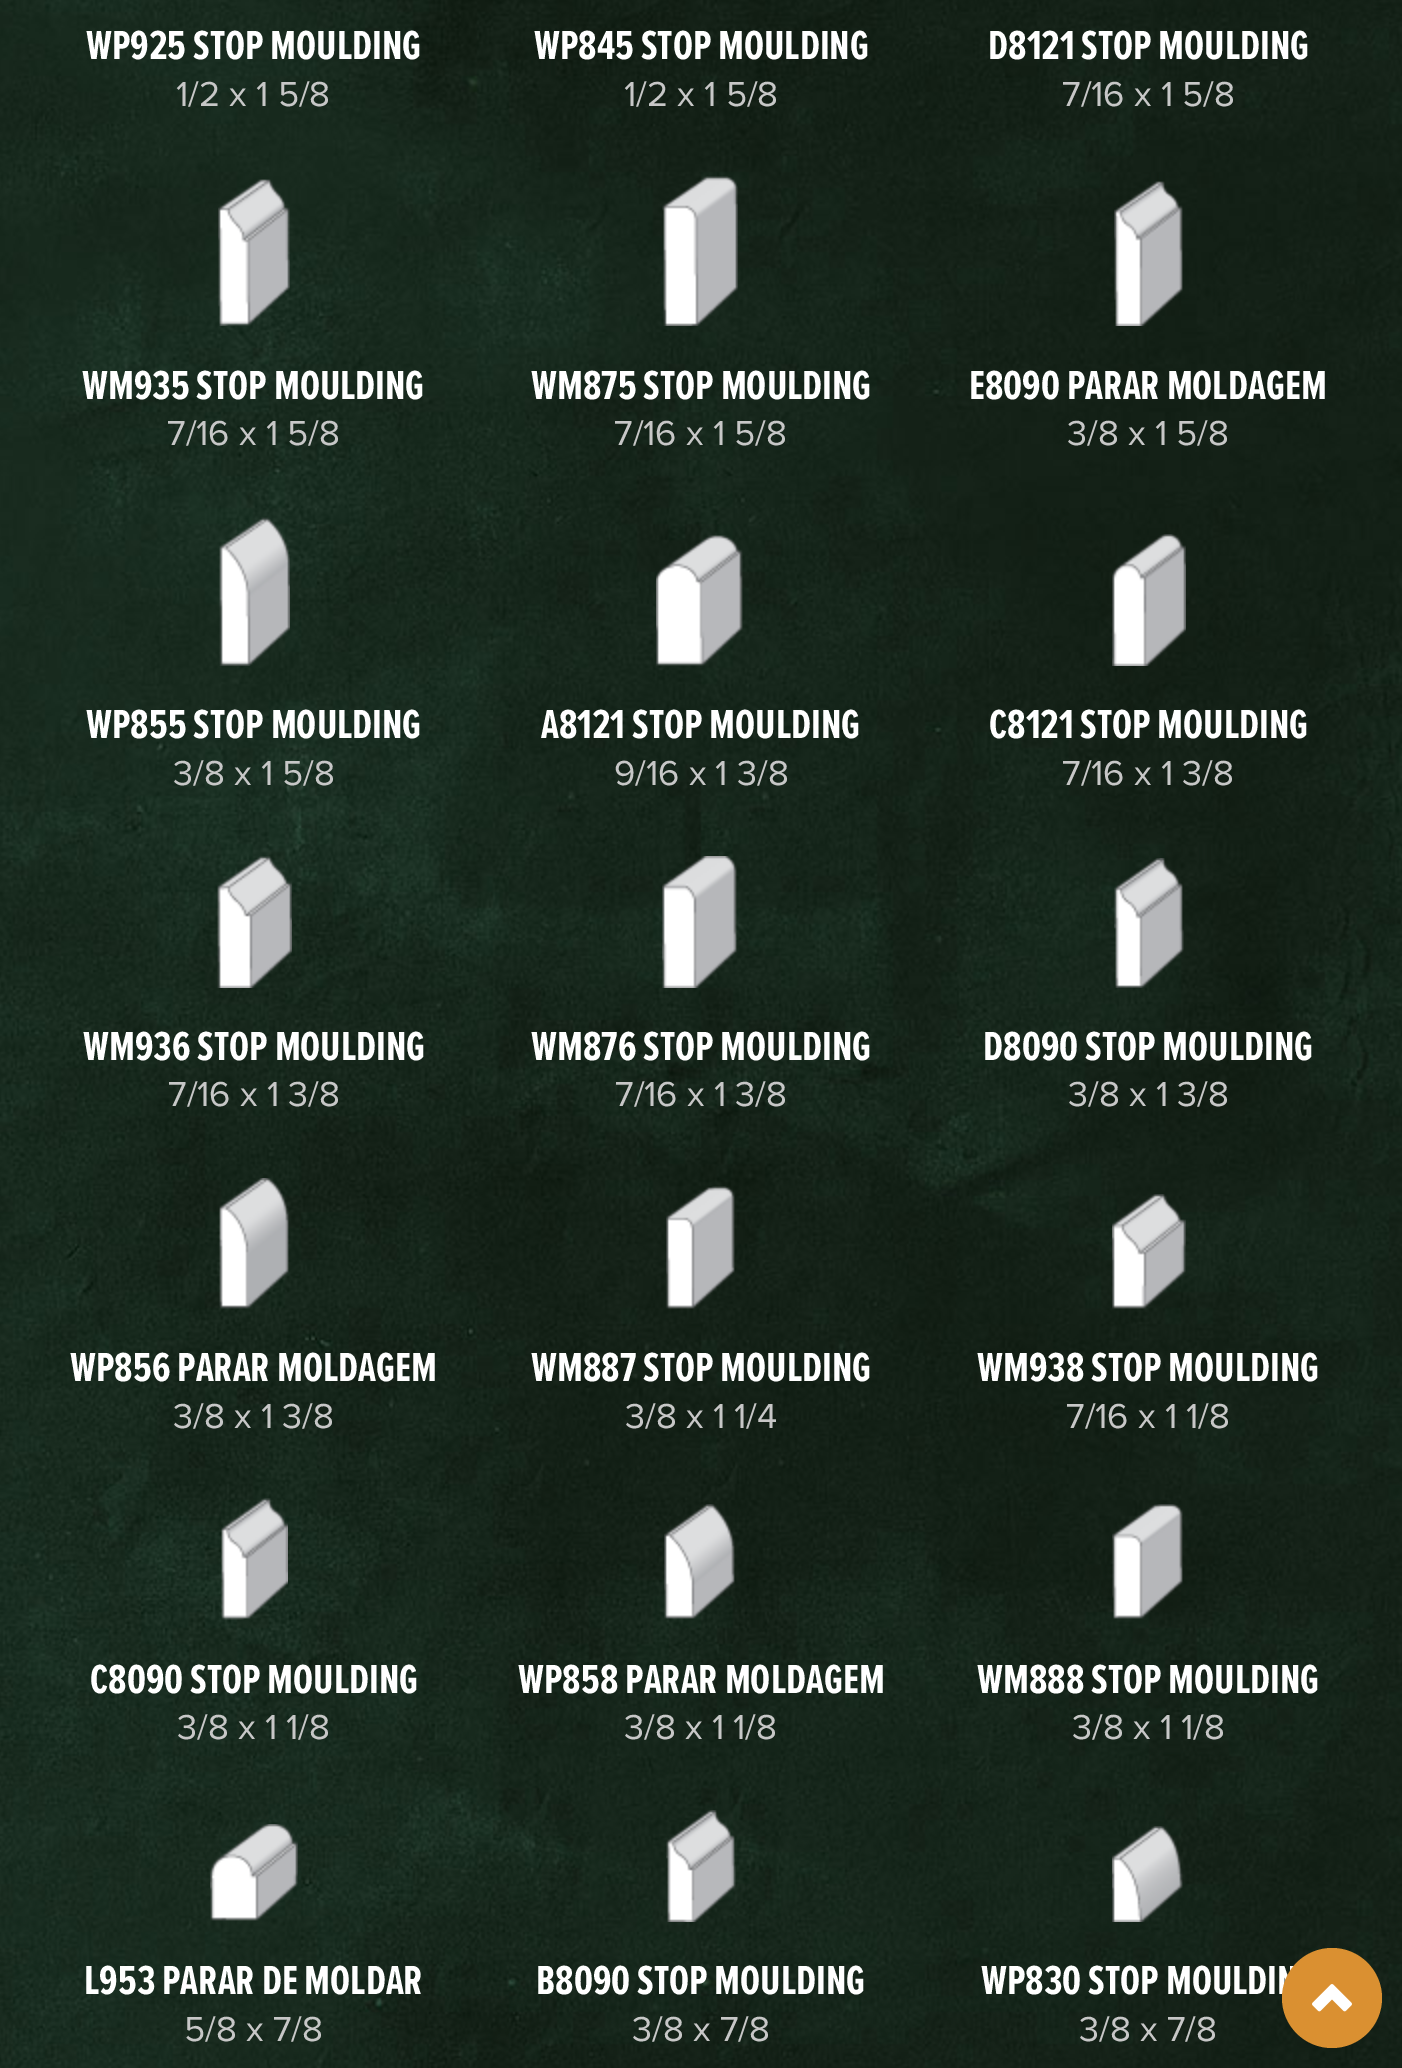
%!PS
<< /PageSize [1402 2068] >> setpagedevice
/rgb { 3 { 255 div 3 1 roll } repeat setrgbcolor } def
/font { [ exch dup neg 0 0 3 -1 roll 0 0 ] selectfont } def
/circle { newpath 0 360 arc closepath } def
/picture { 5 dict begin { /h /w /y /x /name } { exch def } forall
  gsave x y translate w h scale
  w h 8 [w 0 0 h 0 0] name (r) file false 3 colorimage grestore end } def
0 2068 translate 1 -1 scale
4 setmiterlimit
255 255 255 rgb
0 0 1402 2068 rectfill
(img/1.rgb) 0 0 1402 2068 picture
(img/2.rgb) 218 179 72 147 picture
(img/3.rgb) 662 176 76 150 picture
(img/4.rgb) 1114 181 69 145 picture
(img/5.rgb) 219 517 71 149 picture
(img/6.rgb) 656 535 87 131 picture
(img/7.rgb) 1112 534 74 132 picture
(img/8.rgb) 217 856 75 132 picture
(img/9.rgb) 662 856 75 132 picture
(img/10.rgb) 1114 858 70 130 picture
(img/11.rgb) 219 1178 70 131 picture
(img/12.rgb) 666 1186 69 123 picture
(img/13.rgb) 1112 1194 74 115 picture
(img/14.rgb) 221 1498 67 122 picture
(img/15.rgb) 664 1504 71 115 picture
(img/16.rgb) 1112 1504 71 115 picture
(img/17.rgb) 210 1824 88 97 picture
(img/18.rgb) 666 1810 70 112 picture
(img/19.rgb) 1112 1826 71 96 picture
/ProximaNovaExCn-Bold 42 font
86 59 moveto (WP925 STOP MOULDING) show
/ProximaNova-Regular 36 font
199 199 199 rgb
176 106 moveto (1/2 x 1 5/8) show
/ProximaNovaExCn-Bold 42 font
255 255 255 rgb
534 59 moveto (WP845 STOP MOULDING) show
/ProximaNova-Regular 36 font
199 199 199 rgb
624 106 moveto (1/2 x 1 5/8) show
/ProximaNovaExCn-Bold 42 font
255 255 255 rgb
988 59 moveto (D8121 STOP MOULDING) show
/ProximaNova-Regular 36 font
199 199 199 rgb
1062 106 moveto (7/16 x 1 5/8) show
/ProximaNovaExCn-Bold 42 font
255 255 255 rgb
82 399 moveto (WM935 STOP MOULDING) show
/ProximaNova-Regular 36 font
199 199 199 rgb
167 445 moveto (7/16 x 1 5/8) show
/ProximaNovaExCn-Bold 42 font
255 255 255 rgb
531 399 moveto (WM875 STOP MOULDING) show
/ProximaNova-Regular 36 font
199 199 199 rgb
614 445 moveto (7/16 x 1 5/8) show
/ProximaNovaExCn-Bold 42 font
255 255 255 rgb
969 399 moveto (E8090 PARAR MOLDAGEM) show
/ProximaNova-Regular 36 font
199 199 199 rgb
1067 445 moveto (3/8 x 1 5/8) show
/ProximaNovaExCn-Bold 42 font
255 255 255 rgb
86 738 moveto (WP855 STOP MOULDING) show
/ProximaNova-Regular 36 font
199 199 199 rgb
173 785 moveto (3/8 x 1 5/8) show
/ProximaNovaExCn-Bold 42 font
255 255 255 rgb
541 738 moveto (A8121 STOP MOULDING) show
/ProximaNova-Regular 36 font
199 199 199 rgb
614 785 moveto (9/16 x 1 3/8) show
/ProximaNovaExCn-Bold 42 font
255 255 255 rgb
989 738 moveto (C8121 STOP MOULDING) show
/ProximaNova-Regular 36 font
199 199 199 rgb
1062 785 moveto (7/16 x 1 3/8) show
/ProximaNovaExCn-Bold 42 font
255 255 255 rgb
83 1060 moveto (WM936 STOP MOULDING) show
/ProximaNova-Regular 36 font
199 199 199 rgb
168 1106 moveto (7/16 x 1 3/8) show
/ProximaNovaExCn-Bold 42 font
255 255 255 rgb
531 1060 moveto (WM876 STOP MOULDING) show
/ProximaNova-Regular 36 font
199 199 199 rgb
615 1106 moveto (7/16 x 1 3/8) show
/ProximaNovaExCn-Bold 42 font
255 255 255 rgb
983 1060 moveto (D8090 STOP MOULDING) show
/ProximaNova-Regular 36 font
199 199 199 rgb
1068 1106 moveto (3/8 x 1 3/8) show
/ProximaNovaExCn-Bold 42 font
255 255 255 rgb
70 1381 moveto (WP856 PARAR MOLDAGEM) show
/ProximaNova-Regular 36 font
199 199 199 rgb
173 1428 moveto (3/8 x 1 3/8) show
/ProximaNovaExCn-Bold 42 font
255 255 255 rgb
531 1381 moveto (WM887 STOP MOULDING) show
/ProximaNova-Regular 36 font
199 199 199 rgb
625 1428 moveto (3/8 x 1 1/4) show
/ProximaNovaExCn-Bold 42 font
255 255 255 rgb
977 1381 moveto (WM938 STOP MOULDING) show
/ProximaNova-Regular 36 font
199 199 199 rgb
1066 1428 moveto (7/16 x 1 1/8) show
/ProximaNovaExCn-Bold 42 font
255 255 255 rgb
90 1693 moveto (C8090 STOP MOULDING) show
/ProximaNova-Regular 36 font
199 199 199 rgb
177 1739 moveto (3/8 x 1 1/8) show
/ProximaNovaExCn-Bold 42 font
255 255 255 rgb
518 1693 moveto (WP858 PARAR MOLDAGEM) show
/ProximaNova-Regular 36 font
199 199 199 rgb
624 1739 moveto (3/8 x 1 1/8) show
/ProximaNovaExCn-Bold 42 font
255 255 255 rgb
977 1693 moveto (WM888 STOP MOULDING) show
/ProximaNova-Regular 36 font
199 199 199 rgb
1072 1739 moveto (3/8 x 1 1/8) show
/ProximaNovaExCn-Bold 42 font
255 255 255 rgb
84 1994 moveto (L953 PARAR DE MOLDAR) show
/ProximaNova-Regular 36 font
199 199 199 rgb
184 2041 moveto (5/8 x 7/8) show
/ProximaNovaExCn-Bold 42 font
255 255 255 rgb
536 1994 moveto (B8090 STOP MOULDING) show
/ProximaNova-Regular 36 font
199 199 199 rgb
632 2041 moveto (3/8 x 7/8) show
/ProximaNovaExCn-Bold 42 font
255 255 255 rgb
981 1994 moveto (WP830 STOP MOULDIN) show
/ProximaNova-Regular 36 font
199 199 199 rgb
1079 2041 moveto (3/8 x 7/8) show
218 144 49 rgb
1332 1998 50 circle fill
(img/20.rgb) 1312 1984 40 28 picture
showpage
